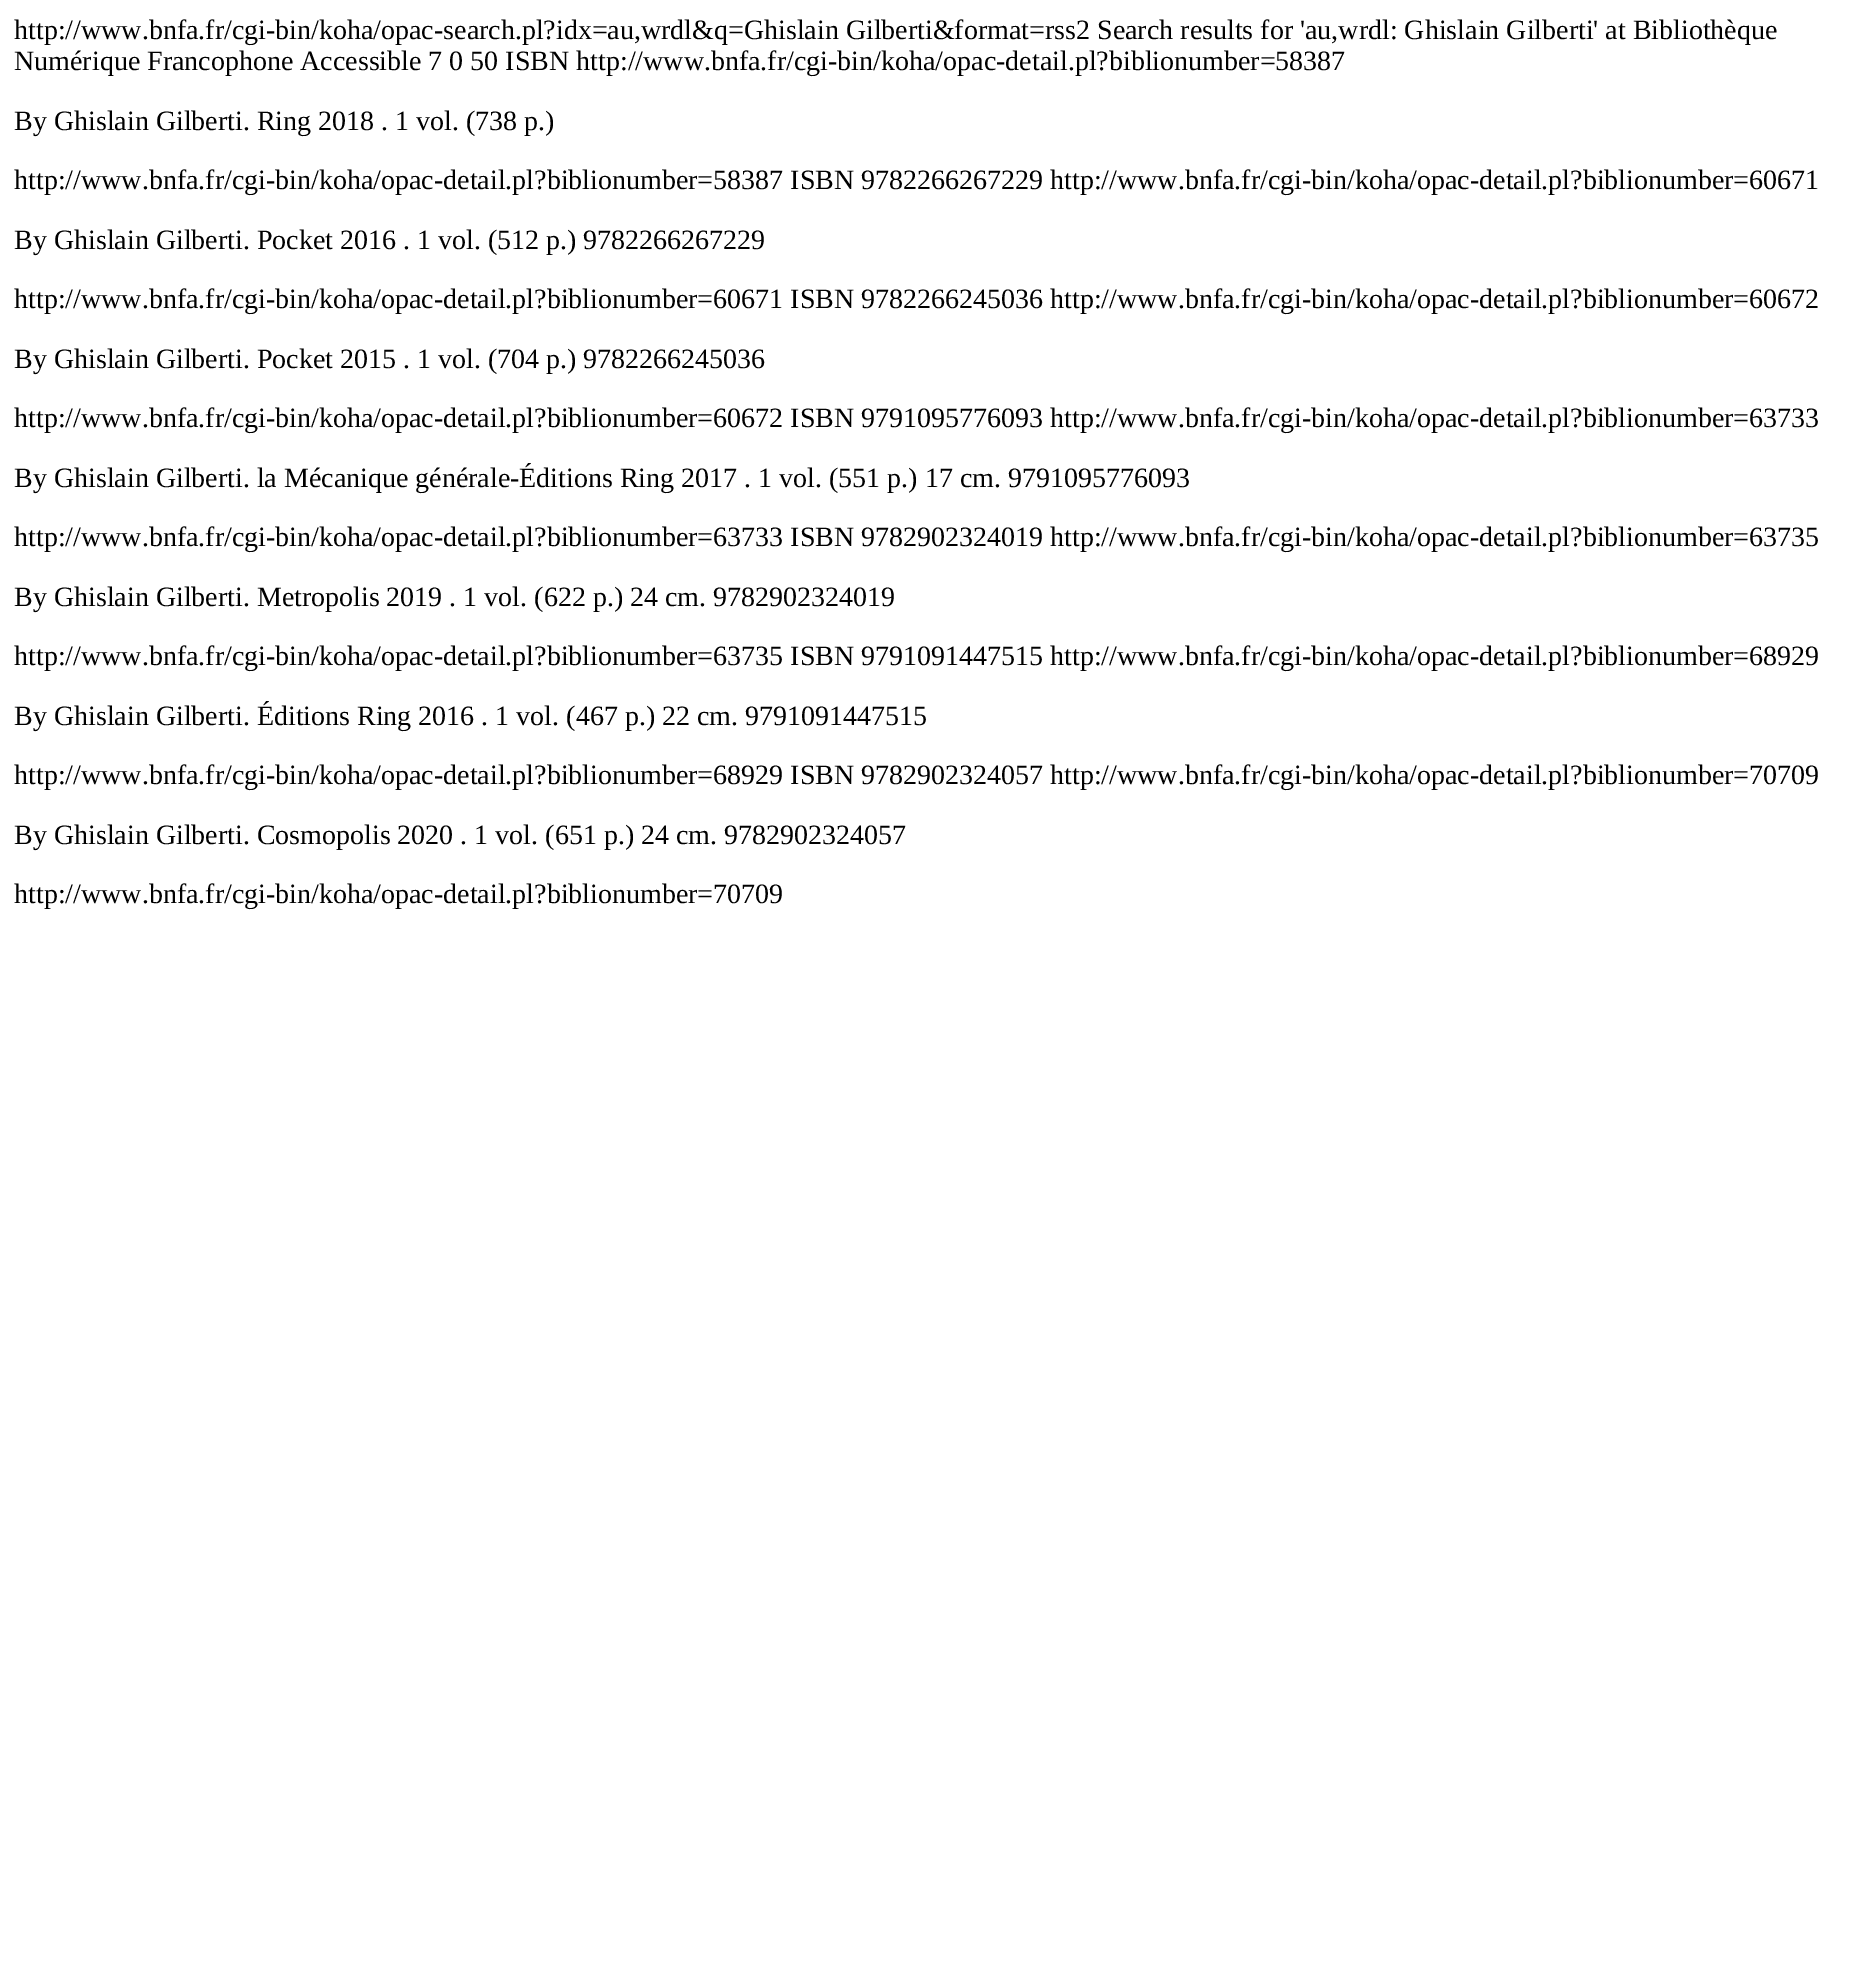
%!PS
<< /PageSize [1857 1964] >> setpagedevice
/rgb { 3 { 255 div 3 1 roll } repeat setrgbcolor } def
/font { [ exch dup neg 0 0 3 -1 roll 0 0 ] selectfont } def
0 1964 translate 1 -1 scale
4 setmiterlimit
255 255 255 rgb
0 0 1857 1964 rectfill
/LiberationSerif-Regular 28 font
0 0 0 rgb
[
  [(http://www.bnfa.fr/cgi-bin/koha/opac-search.pl?idx=au,wrdl&q=Ghislain Gilberti&format=rss2 Search results for 'au,wrdl: Ghislain Gilberti' at Bibliothèque) 14 39]
  [(Numérique Francophone Accessible 7 0 50 ISBN http://www.bnfa.fr/cgi-bin/koha/opac-detail.pl?biblionumber=58387) 14 70]
  [(By Ghislain Gilberti. Ring 2018 . 1 vol. \(738 p.\)) 14 130]
  [(http://www.bnfa.fr/cgi-bin/koha/opac-detail.pl?biblionumber=58387 ISBN 9782266267229 http://www.bnfa.fr/cgi-bin/koha/opac-detail.pl?biblionumber=60671) 14 189]
  [(By Ghislain Gilberti. Pocket 2016 . 1 vol. \(512 p.\) 9782266267229) 14 249]
  [(http://www.bnfa.fr/cgi-bin/koha/opac-detail.pl?biblionumber=60671 ISBN 9782266245036 http://www.bnfa.fr/cgi-bin/koha/opac-detail.pl?biblionumber=60672) 14 308]
  [(By Ghislain Gilberti. Pocket 2015 . 1 vol. \(704 p.\) 9782266245036) 14 368]
  [(http://www.bnfa.fr/cgi-bin/koha/opac-detail.pl?biblionumber=60672 ISBN 9791095776093 http://www.bnfa.fr/cgi-bin/koha/opac-detail.pl?biblionumber=63733) 14 427]
  [(By Ghislain Gilberti. la Mécanique générale-Éditions Ring 2017 . 1 vol. \(551 p.\) 17 cm. 9791095776093) 14 487]
  [(http://www.bnfa.fr/cgi-bin/koha/opac-detail.pl?biblionumber=63733 ISBN 9782902324019 http://www.bnfa.fr/cgi-bin/koha/opac-detail.pl?biblionumber=63735) 14 546]
  [(By Ghislain Gilberti. Metropolis 2019 . 1 vol. \(622 p.\) 24 cm. 9782902324019) 14 606]
  [(http://www.bnfa.fr/cgi-bin/koha/opac-detail.pl?biblionumber=63735 ISBN 9791091447515 http://www.bnfa.fr/cgi-bin/koha/opac-detail.pl?biblionumber=68929) 14 665]
  [(By Ghislain Gilberti. Éditions Ring 2016 . 1 vol. \(467 p.\) 22 cm. 9791091447515) 14 725]
  [(http://www.bnfa.fr/cgi-bin/koha/opac-detail.pl?biblionumber=68929 ISBN 9782902324057 http://www.bnfa.fr/cgi-bin/koha/opac-detail.pl?biblionumber=70709) 14 784]
  [(By Ghislain Gilberti. Cosmopolis 2020 . 1 vol. \(651 p.\) 24 cm. 9782902324057) 14 844]
  [(http://www.bnfa.fr/cgi-bin/koha/opac-detail.pl?biblionumber=70709) 14 903]
] { aload pop moveto show } forall
showpage
